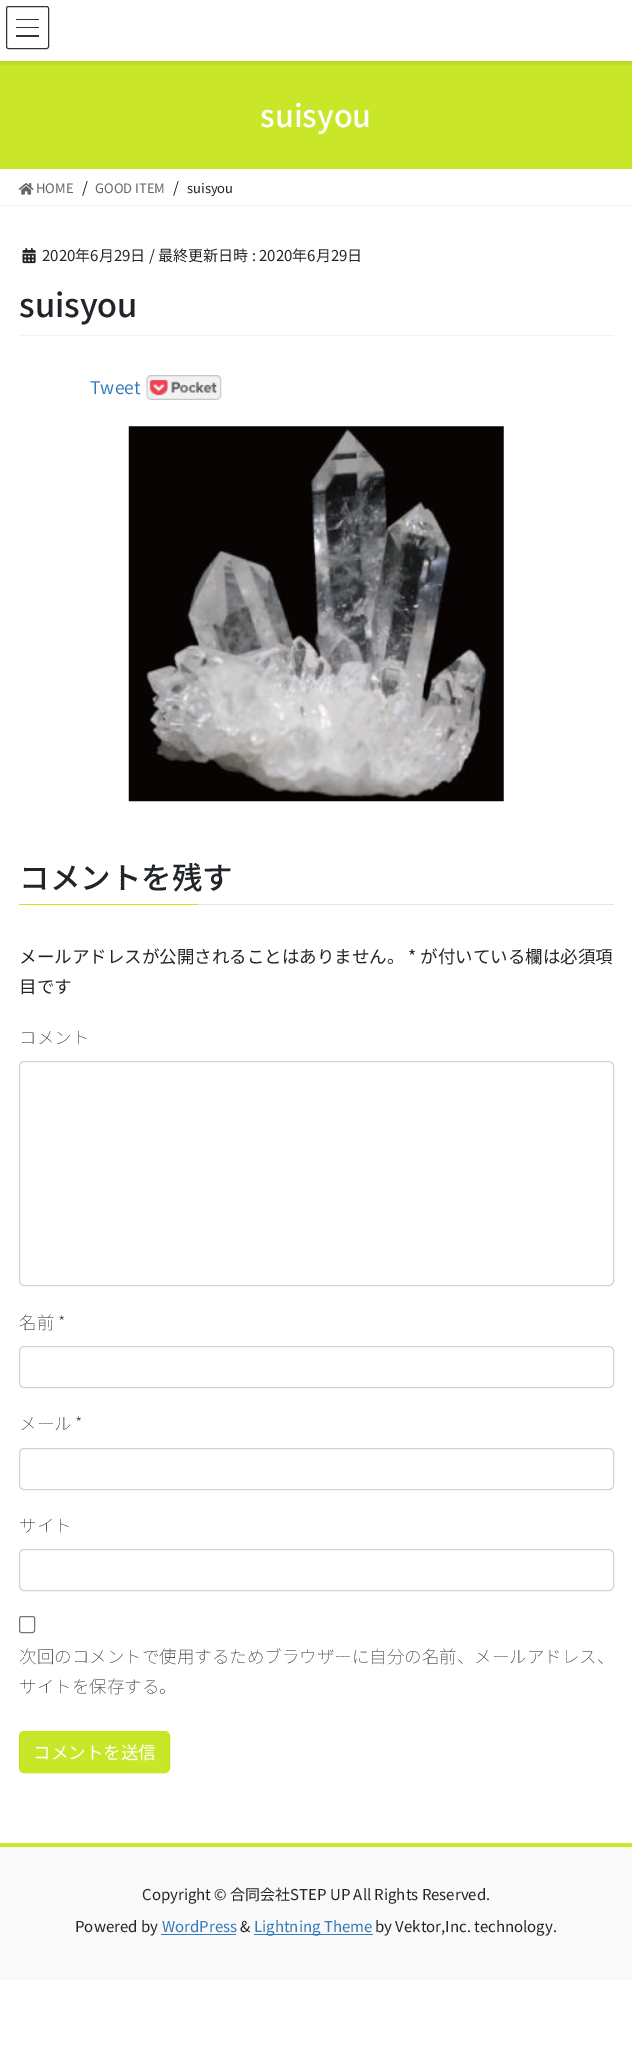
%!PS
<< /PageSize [632 2052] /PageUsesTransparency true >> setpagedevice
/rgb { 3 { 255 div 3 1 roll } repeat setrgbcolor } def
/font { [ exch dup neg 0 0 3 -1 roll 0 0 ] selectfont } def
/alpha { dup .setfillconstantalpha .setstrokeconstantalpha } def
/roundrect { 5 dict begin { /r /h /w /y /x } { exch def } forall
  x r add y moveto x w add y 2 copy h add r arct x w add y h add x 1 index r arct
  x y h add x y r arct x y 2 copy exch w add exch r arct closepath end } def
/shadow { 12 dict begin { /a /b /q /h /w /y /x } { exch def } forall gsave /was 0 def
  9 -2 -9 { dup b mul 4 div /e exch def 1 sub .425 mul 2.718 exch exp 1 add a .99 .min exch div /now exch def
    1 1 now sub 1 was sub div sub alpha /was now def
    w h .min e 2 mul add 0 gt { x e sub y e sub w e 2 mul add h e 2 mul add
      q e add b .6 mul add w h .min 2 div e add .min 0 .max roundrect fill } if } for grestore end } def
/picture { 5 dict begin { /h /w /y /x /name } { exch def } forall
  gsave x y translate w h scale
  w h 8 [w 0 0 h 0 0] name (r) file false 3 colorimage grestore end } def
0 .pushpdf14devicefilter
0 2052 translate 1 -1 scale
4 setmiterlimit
255 255 255 rgb
0 0 632 2052 rectfill
201 230 41 rgb
0 61 632 108 rectfill
gsave
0 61 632 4 rectclip
0 0 0 rgb
0 1 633 62 0 2 0.1 shadow
grestore
[
  [16 19 23 1 51 51 51]
  [16 27 23 1 51 51 51]
  [16 35 23 2 51 51 51]
] { aload pop rgb rectfill } forall
6.5 6.5 42 42 2 roundrect stroke
242 242 242 rgb
0 205 632 1 rectfill
(img/1.rgb) 18 183 16 12 picture
19 335 595 1 rectfill
(img/2.rgb) 22 248 14 16 picture
(img/3.rgb) 146 375 76 25 picture
(img/4.rgb) 128 426 376 376 picture
230 230 230 rgb
198 904 416 1 rectfill
201 230 41 rgb
19 904 179 1 rectfill
206 212 218 rgb
19.5 1061.5 594 224 4.5 roundrect stroke
19.5 1346.5 594 41 4.5 roundrect stroke
19.5 1448.5 594 41 4.5 roundrect stroke
19.5 1549.5 594 41 4.5 roundrect stroke
118 118 118 rgb
19.5 1616.5 15 16 2 roundrect stroke
201 230 41 rgb
19.5 1731.5 150 41 4.5 roundrect gsave fill grestore
199 229 27 rgb
stroke
[
  [0 1847 632 133 249 249 249]
  [0 1843 632 4 201 230 41]
  [161 1934 75 1 51 122 183]
  [254 1934 119 1 51 122 183]
] { aload pop rgb rectfill } forall
/NotoSansJP-Medium 30.5 font
255 255 255 rgb
260 127 moveto (suisyou) show
/NotoSansJP-Regular 13 font
102 102 102 rgb
36 193 moveto (HOME) show
/NotoSansJP-Regular 15 font
33 37 41 rgb
82 193 moveto (/) show
/NotoSansJP-Regular 13 font
102 102 102 rgb
95 193 moveto (GOOD ITEM) show
/NotoSansJP-Regular 15 font
33 37 41 rgb
173 193 moveto (/) show
/NotoSansJP-Regular 13 font
187 193 moveto (suisyou) show
/NotoSansJP-Regular 15 font
42 261 moveto (2020年6月29日) show
149 261 moveto (/ 最終更新日時 : 2020年6月29日) show
/NotoSansJP-Medium 32.5 font
19 317 moveto (suisyou) show
/NotoSansJP-Regular 17.5 font
51 122 183 rgb
90 394 moveto (Tweet) show
/NotoSansJP-Medium 30.5 font
33 37 41 rgb
19 889 moveto (コメントを残す) show
/NotoSansJP-Regular 17.5 font
19 963 moveto (メールアドレスが公開されることはありません。 * が付いている欄は必須項) show
19 993 moveto (目です) show
/NotoSansJP-Thin 17.5 font
[
  [(コメント) 19 1044]
  [(名前 *) 19 1329]
  [(メール *) 19 1430]
  [(サイト) 19 1532]
  [(次回のコメントで使用するためブラウザーに自分の名前、メールアドレス、) 19 1663]
  [(サイトを保存する。) 19 1693]
] { aload pop moveto show } forall
/NotoSansJP-Regular 17.5 font
255 255 255 rgb
33 1759 moveto (コメントを送信) show
/NotoSansJP-Regular 15 font
33 37 41 rgb
142 1900 moveto (Copyright © 合同会社STEP UP All Rights Reserved.) show
75 1932 moveto (Powered by) show
51 122 183 rgb
162 1932 moveto (WordPress) show
33 37 41 rgb
240 1932 moveto (&) show
51 122 183 rgb
254 1932 moveto (Lightning Theme) show
33 37 41 rgb
375 1932 moveto (by Vektor,Inc. technology.) show
.poppdf14devicefilter showpage
